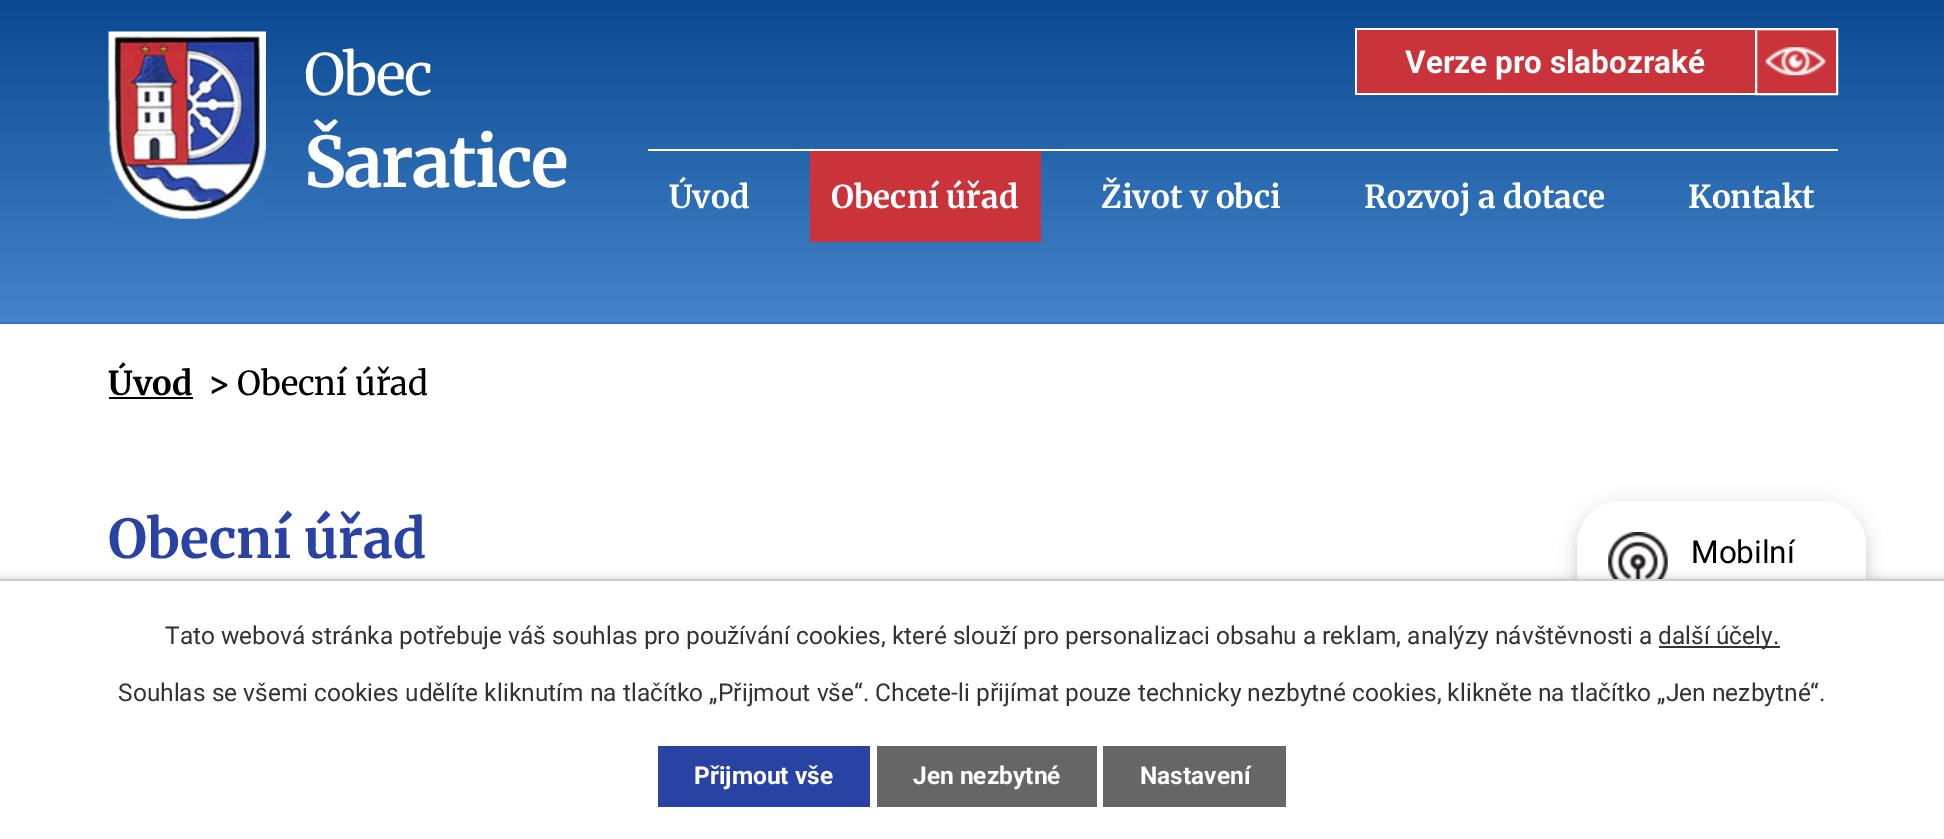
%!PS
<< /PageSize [1944 839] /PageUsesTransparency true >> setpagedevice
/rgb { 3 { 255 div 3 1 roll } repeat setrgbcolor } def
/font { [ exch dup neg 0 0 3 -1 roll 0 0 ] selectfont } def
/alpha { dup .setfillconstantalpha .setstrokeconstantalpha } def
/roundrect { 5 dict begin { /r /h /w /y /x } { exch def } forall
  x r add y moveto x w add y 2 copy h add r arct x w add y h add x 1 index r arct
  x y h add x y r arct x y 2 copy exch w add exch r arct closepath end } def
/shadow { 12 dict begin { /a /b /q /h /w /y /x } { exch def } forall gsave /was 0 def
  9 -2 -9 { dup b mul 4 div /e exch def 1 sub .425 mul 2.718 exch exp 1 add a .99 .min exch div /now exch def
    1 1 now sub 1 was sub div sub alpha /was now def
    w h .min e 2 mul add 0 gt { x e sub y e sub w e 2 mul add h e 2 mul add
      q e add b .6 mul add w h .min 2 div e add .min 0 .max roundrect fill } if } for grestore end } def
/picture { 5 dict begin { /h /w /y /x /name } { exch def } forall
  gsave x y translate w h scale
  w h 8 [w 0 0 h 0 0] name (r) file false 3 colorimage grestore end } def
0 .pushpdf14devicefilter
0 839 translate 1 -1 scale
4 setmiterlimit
255 255 255 rgb
0 0 1944 839 rectfill
gsave 0 0 moveto 1944 0 lineto 1944 322 lineto 0 322 lineto closepath clip newpath
<< /ShadingType 2 /ColorSpace /DeviceRGB /Coords [972 0 972 322] /Extend [true true] /Function << /FunctionType 2 /Domain [0 1] /C0 [0.043 0.29 0.573] /C1 [0.263 0.518 0.792] /N 1 >> >> shfill grestore
44 117 196 rgb
0 322 1944 2 rectfill
(img/1.rgb) 108 31 158 188 picture
[
  [1357 30 398 63 202 51 58]
  [1355 28 400 2 255 255 255]
  [1355 93 400 2 255 255 255]
  [1355 28 2 67 255 255 255]
  [1757 30 79 63 202 51 58]
] { aload pop rgb rectfill } forall
(img/2.rgb) 1765 47 61 29 picture
255 255 255 rgb
2 setlinewidth
1756 29 81 65 rectstroke
[
  [648 149 1190 2 255 255 255]
  [810 151 231 91 202 51 58]
  [109 397 84 2 0 0 0]
] { aload pop rgb rectfill } forall
1577 506 289 261 44 9 0.2 shadow
255 255 255 rgb
1577 501 289 260 44 roundrect fill
(img/3.rgb) 1608 532 60 47 picture
0 0 0 rgb
0 579 1944 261 0 4.5 0.2 shadow
[
  [0 581 1944 258 255 255 255]
  [0 579 1944 2 204 204 204]
  [1659 646 121 2 51 51 51]
  [658 746 212 61 41 67 164]
  [877 746 220 61 102 102 102]
  [1103 746 183 61 102 102 102]
] { aload pop rgb rectfill } forall
/Merriweather-Regular 57 font
255 255 255 rgb
304 95 moveto -1.75 0 (Obec) ashow
/Merriweather-Bold 69.5 font
304 187 moveto -1.75 0 (Šaratice) ashow
/Roboto-Bold 31.5 font
1405 73 moveto (Verze pro slabozraké) show
/Merriweather-Bold 31.5 font
[
  [(Úvod) 669 208]
  [(Obecní úřad) 831 208]
  [(Život v obci) 1101 208]
  [(Rozvoj a dotace) 1364 208]
  [(Kontakt) 1688 208]
] { aload pop moveto show } forall
/Merriweather-Bold 33 font
0 0 0 rgb
108 395 moveto (Úvod) show
208 395 moveto (>) show
/Merriweather-Regular 33 font
237 395 moveto (Obecní úřad) show
/Merriweather-Bold 53.5 font
41 67 164 rgb
108 558 moveto (Obecní úřad) show
/Roboto-Regular 31.5 font
0 0 0 rgb
1691 563 moveto (Mobilní) show
/Roboto-Regular 24.5 font
51 51 51 rgb
[
  [(Tato webová stránka potřebuje váš souhlas pro používání cookies, které slouží pro personalizaci obsahu a reklam, analýzy návštěvnosti a) 165 644]
  [(další účely.) 1658 644]
  [(Souhlas se všemi cookies udělíte kliknutím na tlačítko „Přijmout vše“. Chcete-li přijímat pouze technicky nezbytné cookies, klikněte na tlačítko „Jen nezbytné“.) 118 701]
] { aload pop moveto show } forall
/Roboto-Bold 24.5 font
255 255 255 rgb
[
  [(Přijmout vše) 694 784]
  [(Jen nezbytné) 913 784]
  [(Nastavení) 1140 784]
] { aload pop moveto show } forall
.poppdf14devicefilter showpage
